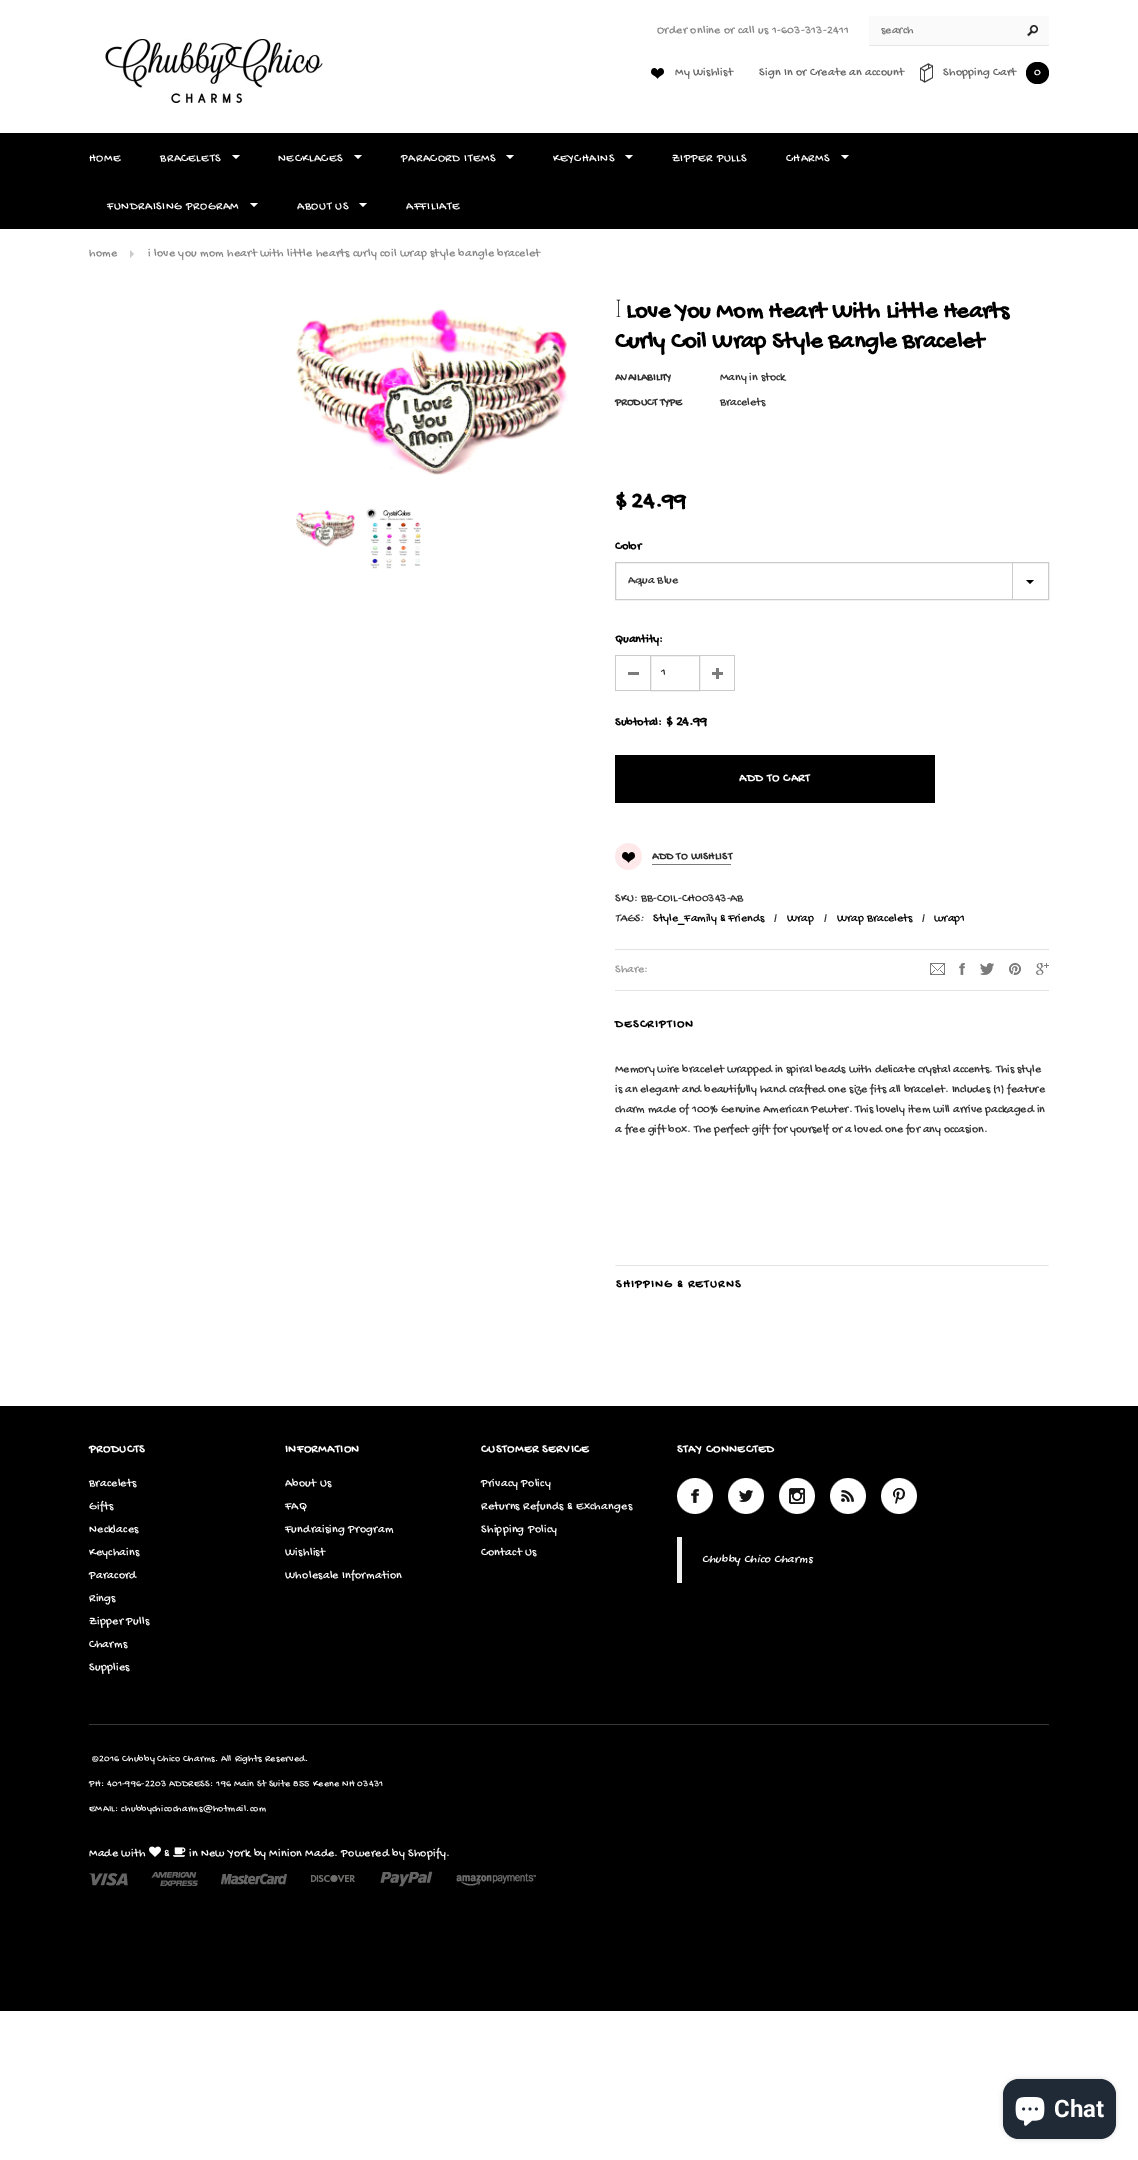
%!PS
<< /PageSize [1138 2160] /PageUsesTransparency true >> setpagedevice
/rgb { 3 { 255 div 3 1 roll } repeat setrgbcolor } def
/font { [ exch dup neg 0 0 3 -1 roll 0 0 ] selectfont } def
/alpha { dup .setfillconstantalpha .setstrokeconstantalpha } def
/roundrect { 5 dict begin { /r /h /w /y /x } { exch def } forall
  x r add y moveto x w add y 2 copy h add r arct x w add y h add x 1 index r arct
  x y h add x y r arct x y 2 copy exch w add exch r arct closepath end } def
/shadow { 12 dict begin { /a /b /q /h /w /y /x } { exch def } forall gsave /was 0 def
  9 -2 -9 { dup b mul 4 div /e exch def 1 sub .425 mul 2.718 exch exp 1 add a .99 .min exch div /now exch def
    1 1 now sub 1 was sub div sub alpha /was now def
    w h .min e 2 mul add 0 gt { x e sub y e sub w e 2 mul add h e 2 mul add
      q e add b .6 mul add w h .min 2 div e add .min 0 .max roundrect fill } if } for grestore end } def
/picture { 5 dict begin { /h /w /y /x /name } { exch def } forall
  gsave x y translate w h scale
  w h 8 [w 0 0 h 0 0] name (r) file false 3 colorimage grestore end } def
0 .pushpdf14devicefilter
0 2160 translate 1 -1 scale
4 setmiterlimit
255 255 255 rgb
0 0 1138 2160 rectfill
250 250 250 rgb
869 16 180 29 rectfill
231 231 231 rgb
869 45 180 1 rectfill
(img/1.rgb) 1027 25 11 12 picture
(img/2.rgb) 105 39 218 64 picture
(img/3.rgb) 651 68 13 11 picture
(img/4.rgb) 920 63 13 20 picture
0 0 0 rgb
1026 62 23 22 11 roundrect fill
0 133 1138 96 rectfill
255 255 255 rgb
232 155 moveto 240 155 lineto 236 159 lineto closepath fill
354 155 moveto 362 155 lineto 358 159 lineto closepath fill
506 155 moveto 514 155 lineto 510 159 lineto closepath fill
625 155 moveto 633 155 lineto 629 159 lineto closepath fill
841 155 moveto 849 155 lineto 845 159 lineto closepath fill
250 203 moveto 258 203 lineto 254 207 lineto closepath fill
359 203 moveto 367 203 lineto 363 207 lineto closepath fill
203 203 203 rgb
130 258 moveto 130 250 lineto 134 254 lineto closepath fill
(img/5.rgb) 295 309 273 166 picture
(img/6.rgb) 296 509 60 38 picture
(img/7.rgb) 366 508 55 61 picture
615.5 562.5 433 37 rectstroke
1012 563 1 36 rectfill
0 0 0 rgb
1026 580 moveto 1034 580 lineto 1030 584 lineto closepath fill
[
  [628 672 11 3 123 123 123]
  [615 655 35 1 203 203 203]
  [615 690 35 1 203 203 203]
  [615 655 1 36 203 203 203]
] { aload pop rgb rectfill } forall
650.5 655.5 49 35 rectstroke
(img/8.rgb) 712 668 11 11 picture
[
  [700 655 35 1 203 203 203]
  [734 655 1 36 203 203 203]
  [700 690 35 1 203 203 203]
  [615 755 320 48 0 0 0]
] { aload pop rgb rectfill } forall
(img/9.rgb) 615 843 27 27 picture
[
  [652 864 79 1 123 123 123]
  [615 949 434 1 227 227 227]
  [615 990 434 1 227 227 227]
] { aload pop rgb rectfill } forall
(img/10.rgb) 930 963 15 12 picture
(img/11.rgb) 959 963 6 12 picture
(img/12.rgb) 980 963 14 12 picture
(img/13.rgb) 1009 963 12 12 picture
(img/14.rgb) 1036 963 13 12 picture
615 1265 moveto 1049 1265 lineto 1048 1266 lineto 616 1266 lineto closepath fill
0 0 0 rgb
0 1406 1138 605 rectfill
(img/15.rgb) 677 1478 36 36 picture
(img/16.rgb) 728 1478 36 36 picture
(img/17.rgb) 779 1478 36 36 picture
(img/18.rgb) 830 1478 36 36 picture
(img/19.rgb) 881 1478 36 36 picture
238 238 238 rgb
677 1537 5 46 rectfill
56 56 56 rgb
89 1724 960 1 rectfill
(img/20.rgb) 149 1846 12 11 picture
(img/21.rgb) 173 1847 13 10 picture
(img/22.rgb) 89 1873 39 13 picture
(img/23.rgb) 151 1872 47 14 picture
(img/24.rgb) 221 1873 66 12 picture
(img/25.rgb) 311 1875 44 7 picture
(img/26.rgb) 380 1871 53 16 picture
(img/27.rgb) 456 1873 80 13 picture
0 0 0 rgb
1003 2079 113 60 16 2.5 0.15 shadow
32 42 54 rgb
1003 2079 113 60 16 roundrect fill
(img/28.rgb) 1015 2097 30 29 picture
/GochiHand-Regular 12 font
132 132 132 rgb
657 33 moveto 0.25 0 (Order online or call us 1-603-313-2411) ashow
117 117 117 rgb
881 33 moveto (search) show
98 98 98 rgb
675 75 moveto 0.25 0 (My Wishlist) ashow
759 75 moveto 0.25 0 (Sign In or Create an account) ashow
943 75 moveto 0.25 0 (Shopping Cart) ashow
255 255 255 rgb
1034 75 moveto 0.25 0 (0) ashow
89 161 moveto 0.6 0 (HOME) ashow
160 161 moveto 0.6 0 (BRACELETS) ashow
278 161 moveto 0.6 0 (NECKLACES) ashow
401 161 moveto 0.6 0 (PARACORD ITEMS) ashow
553 161 moveto 0.6 0 (KEYCHAINS) ashow
672 161 moveto 0.6 0 (ZIPPER PULLS) ashow
786 161 moveto 0.6 0 (CHARMS) ashow
107 209 moveto 0.6 0 (FUNDRAISING PROGRAM) ashow
297 209 moveto 0.6 0 (ABOUT US) ashow
406 209 moveto 0.6 0 (AFFILIATE) ashow
132 132 132 rgb
89 256 moveto 0.25 0 (home) ashow
148 256 moveto 0.25 0 (i love you mom heart with little hearts curly coil wrap style bangle bracelet) ashow
/NotoSans-Thin 24 font
0 0 0 rgb
615 317 moveto (I) show
/GochiHand-Bold 24 font
626 317 moveto (Love You Mom Heart With Little Hearts) show
615 347 moveto (Curly Coil Wrap Style Bangle Bracelet) show
/GochiHand-Bold 11 font
45 45 45 rgb
615 380 moveto (AVAILABILITY) show
/GochiHand-Regular 12 font
720 380 moveto (Many in stock) show
/GochiHand-Bold 11 font
615 405 moveto (PRODUCT TYPE) show
/GochiHand-Regular 12 font
720 405 moveto (Bracelets) show
/GochiHand-Bold 24 font
0 0 0 rgb
615 507 moveto ($ 24.99) show
/GochiHand-Bold 12 font
615 549 moveto (Color) show
/GochiHand-Regular 12 font
45 45 45 rgb
628 583 moveto (Aqua Blue) show
/GochiHand-Bold 12 font
0 0 0 rgb
615 642 moveto (Quantity:) show
/GochiHand-Regular 12 font
45 45 45 rgb
661 675 moveto (1) show
/GochiHand-Bold 12 font
0 0 0 rgb
615 725 moveto (Subtotal:) show
/GochiHand-Bold 14 font
666 725 moveto ($ 24.99) show
/GochiHand-Bold 12 font
255 255 255 rgb
739 781 moveto 0.6 0 (ADD TO CART) ashow
/GochiHand-Bold 11 font
45 45 45 rgb
652 859 moveto 0.25 0 (ADD TO WISHLIST) ashow
/GochiHand-Regular 12 font
615 901 moveto (SKU: BB-COIL-CH00343-AB) show
/GochiHand-Italic 12 font
615 921 moveto (TAGS:) show
/GochiHand-Regular 12 font
0 0 0 rgb
653 921 moveto (Style_Family & Friends) show
45 45 45 rgb
774 921 moveto (/) show
0 0 0 rgb
787 921 moveto (Wrap) show
45 45 45 rgb
824 921 moveto (/) show
0 0 0 rgb
837 921 moveto (Wrap Bracelets) show
45 45 45 rgb
922 921 moveto (/) show
0 0 0 rgb
934 921 moveto (wrap1) show
150 150 150 rgb
615 972 moveto (Share:) show
/GochiHand-Bold 12 font
0 0 0 rgb
615 1027 moveto 1.25 0 (DESCRIPTION) ashow
/GochiHand-Regular 12 font
45 45 45 rgb
[
  [(Memory wire bracelet wrapped in spiral beads with delicate crystal accents. This style) 615 1072]
  [(is an elegant and beautifully hand crafted one size fits all bracelet. Includes \(1\) feature) 615 1092]
  [(charm made of 100% Genuine American Pewter. This lovely item will arrive packaged in) 615 1112]
  [(a free gift box. The perfect gift for yourself or a loved one for any occasion.) 615 1132]
] { aload pop moveto show } forall
/GochiHand-Bold 12 font
0 0 0 rgb
616 1287 moveto 1.25 0 (SHIPPING & RETURNS) ashow
255 255 255 rgb
89 1452 moveto 0.6 0 (PRODUCTS) ashow
/GochiHand-Regular 12 font
89 1486 moveto 0.25 0 (Bracelets) ashow
89 1509 moveto 0.25 0 (Gifts) ashow
89 1532 moveto 0.25 0 (Necklaces) ashow
89 1555 moveto 0.25 0 (Keychains) ashow
89 1578 moveto 0.25 0 (Paracord) ashow
89 1601 moveto 0.25 0 (Rings) ashow
89 1624 moveto 0.25 0 (Zipper Pulls) ashow
89 1647 moveto 0.25 0 (Charms) ashow
89 1670 moveto 0.25 0 (Supplies) ashow
/GochiHand-Bold 12 font
285 1452 moveto 0.6 0 (INFORMATION) ashow
/GochiHand-Regular 12 font
285 1486 moveto 0.25 0 (About Us) ashow
285 1509 moveto 0.25 0 (FAQ) ashow
285 1532 moveto 0.25 0 (Fundraising Program) ashow
285 1555 moveto 0.25 0 (Wishlist) ashow
285 1578 moveto 0.25 0 (Wholesale Information) ashow
/GochiHand-Bold 12 font
481 1452 moveto 0.6 0 (CUSTOMER SERVICE) ashow
/GochiHand-Regular 12 font
481 1486 moveto 0.25 0 (Privacy Policy) ashow
481 1509 moveto 0.25 0 (Returns Refunds & Exchanges) ashow
481 1532 moveto 0.25 0 (Shipping Policy) ashow
481 1555 moveto 0.25 0 (Contact Us) ashow
/GochiHand-Bold 12 font
677 1452 moveto 0.6 0 (STAY CONNECTED) ashow
/GochiHand-Italic 12 font
702 1562 moveto 0.25 0 (Chubby Chico Charms) ashow
/GochiHand-Regular 10 font
92 1761 moveto 0.25 0 (©2016 Chubby Chico Charms. All Rights Reserved.) ashow
89 1786 moveto 0.25 0 (PH: 401-996-2203 ADDRESS: 196 Main St Suite 855 Keene NH 03431) ashow
89 1811 moveto 0.25 0 (EMAIL: chubbychicocharms@hotmail.com) ashow
/GochiHand-Regular 12 font
89 1856 moveto 0.25 0 (Made with) ashow
164 1856 moveto 0.25 0 (&) ashow
189 1856 moveto 0.25 0 (in New York by Minion Made. Powered by Shopify.) ashow
/Roboto-Bold 24 font
1054 2117 moveto (Chat) show
.poppdf14devicefilter showpage
